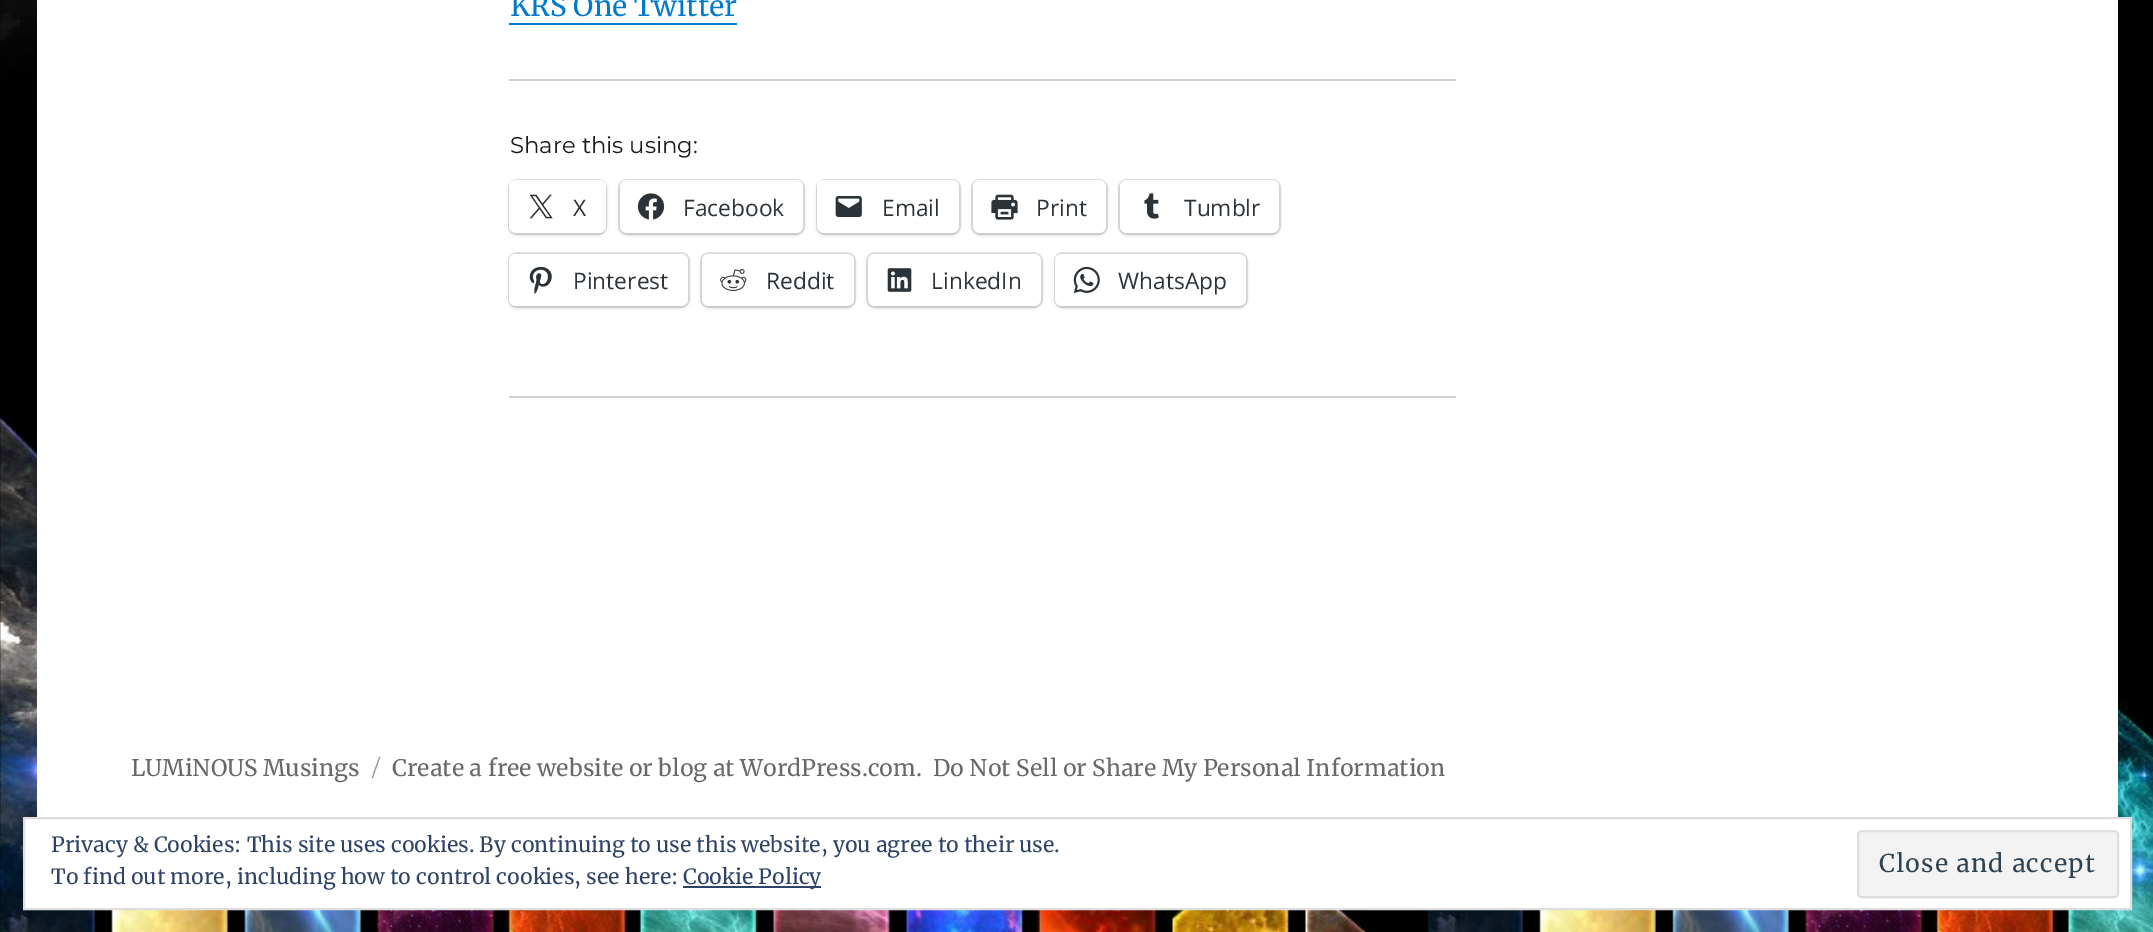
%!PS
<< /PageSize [2153 932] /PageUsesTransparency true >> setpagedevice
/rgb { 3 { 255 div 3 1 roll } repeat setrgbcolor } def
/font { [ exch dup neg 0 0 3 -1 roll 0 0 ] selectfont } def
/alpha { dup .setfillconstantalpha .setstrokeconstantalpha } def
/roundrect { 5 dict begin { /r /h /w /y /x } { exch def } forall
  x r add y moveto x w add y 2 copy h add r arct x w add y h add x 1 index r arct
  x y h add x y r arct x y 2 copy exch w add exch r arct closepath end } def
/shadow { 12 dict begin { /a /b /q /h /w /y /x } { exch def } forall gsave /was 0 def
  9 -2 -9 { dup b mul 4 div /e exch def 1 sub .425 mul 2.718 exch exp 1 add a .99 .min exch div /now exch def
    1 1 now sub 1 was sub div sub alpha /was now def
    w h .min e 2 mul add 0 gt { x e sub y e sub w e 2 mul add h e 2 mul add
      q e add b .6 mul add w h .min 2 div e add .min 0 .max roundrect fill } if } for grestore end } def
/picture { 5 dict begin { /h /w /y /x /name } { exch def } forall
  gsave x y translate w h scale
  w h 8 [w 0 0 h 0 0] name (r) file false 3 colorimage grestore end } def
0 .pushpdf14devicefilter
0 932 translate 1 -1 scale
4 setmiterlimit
255 255 255 rgb
0 0 2153 932 rectfill
(img/1.rgb) 0 0 2153 932 picture
37 0 2081 817 rectfill
0 122 204 rgb
509 -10 moveto 509 25 lineto 737 25 lineto 737 -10 lineto 737 23 lineto 509 23 lineto closepath fill
209 209 209 rgb
509 79 947 2 rectfill
224 224 224 rgb
2 setlinewidth
509 180 97 54 8 roundrect stroke
0 0 0 rgb
509 182 97 53 7 2 0.12 shadow
255 255 255 rgb
509 180 97 53 7 roundrect fill
(img/2.rgb) 529 194 24 25 picture
224 224 224 rgb
619 180 185 54 8 roundrect stroke
0 0 0 rgb
620 182 183 53 7 2 0.12 shadow
255 255 255 rgb
620 180 183 53 7 roundrect fill
(img/3.rgb) 637 193 28 27 picture
224 224 224 rgb
817 180 143 54 8 roundrect stroke
0 0 0 rgb
817 182 142 53 7 2 0.12 shadow
255 255 255 rgb
817 180 142 53 7 roundrect fill
(img/4.rgb) 835 196 27 21 picture
224 224 224 rgb
972 180 135 54 8 roundrect stroke
0 0 0 rgb
973 182 133 53 7 2 0.12 shadow
255 255 255 rgb
973 180 133 53 7 roundrect fill
(img/5.rgb) 991 194 27 26 picture
224 224 224 rgb
1119 180 161 54 8 roundrect stroke
0 0 0 rgb
1120 182 159 53 7 2 0.12 shadow
255 255 255 rgb
1120 180 159 53 7 roundrect fill
(img/6.rgb) 1144 193 15 26 picture
224 224 224 rgb
509 253 180 54 8 roundrect stroke
0 0 0 rgb
509 256 179 52 7 2 0.12 shadow
255 255 255 rgb
509 254 179 52 7 roundrect fill
(img/7.rgb) 529 266 23 28 picture
224 224 224 rgb
701 253 154 54 8 roundrect stroke
0 0 0 rgb
702 256 152 52 7 2 0.12 shadow
255 255 255 rgb
702 254 152 52 7 roundrect fill
(img/8.rgb) 720 269 27 22 picture
224 224 224 rgb
867 253 175 54 8 roundrect stroke
0 0 0 rgb
868 256 173 52 7 2 0.12 shadow
255 255 255 rgb
868 254 173 52 7 roundrect fill
(img/9.rgb) 887 268 25 24 picture
224 224 224 rgb
1055 253 192 54 8 roundrect stroke
0 0 0 rgb
1055 256 191 52 7 2 0.12 shadow
255 255 255 rgb
1055 254 191 52 7 roundrect fill
(img/10.rgb) 1073 266 27 27 picture
209 209 209 rgb
509 396 947 2 rectfill
255 255 255 rgb
24 818 moveto 2131 818 lineto 2131 909 lineto 24 909 lineto closepath gsave fill grestore
222 222 222 rgb
stroke
46 68 103 rgb
683 886 138 2 rectfill
243 243 243 rgb
1858 831 260 66 4 roundrect gsave fill grestore
222 222 222 rgb
stroke
/Merriweather-Regular 28 font
0 122 204 rgb
510 16 moveto (KRS One Twitter) show
/Montserrat-Thin 22.75 font
26 26 26 rgb
510 153 moveto (Share this using:) show
/OpenSans-Regular 22.75 font
44 51 56 rgb
[
  [(X) 573 216]
  [(Facebook) 683 216]
  [(Email) 882 216]
  [(Print) 1036 216]
  [(Tumblr) 1184 216]
  [(Pinterest) 573 289]
  [(Reddit) 766 289]
  [(LinkedIn) 931 289]
  [(WhatsApp) 1118 289]
] { aload pop moveto show } forall
/Merriweather-Regular 22.75 font
104 104 104 rgb
131 776 moveto (LUMiNOUS Musings) show
/Montserrat-Thin 22.75 font
149 149 149 rgb
372 776 moveto (/) show
/Merriweather-Regular 22.75 font
104 104 104 rgb
392 776 moveto (Create a free website or blog at WordPress.com.) show
933 776 moveto (Do Not Sell or Share My Personal Information) show
/Merriweather-Regular 21 font
46 68 103 rgb
[
  [(Privacy & Cookies: This site uses cookies. By continuing to use this website, you agree to their use.) 51 852]
  [(To find out more, including how to control cookies, see here:) 51 884]
  [(Cookie Policy) 683 884]
] { aload pop moveto show } forall
/Merriweather-Regular 24.5 font
46 68 83 rgb
1879 872 moveto 1.1 0 (Close and accept) ashow
.poppdf14devicefilter showpage
